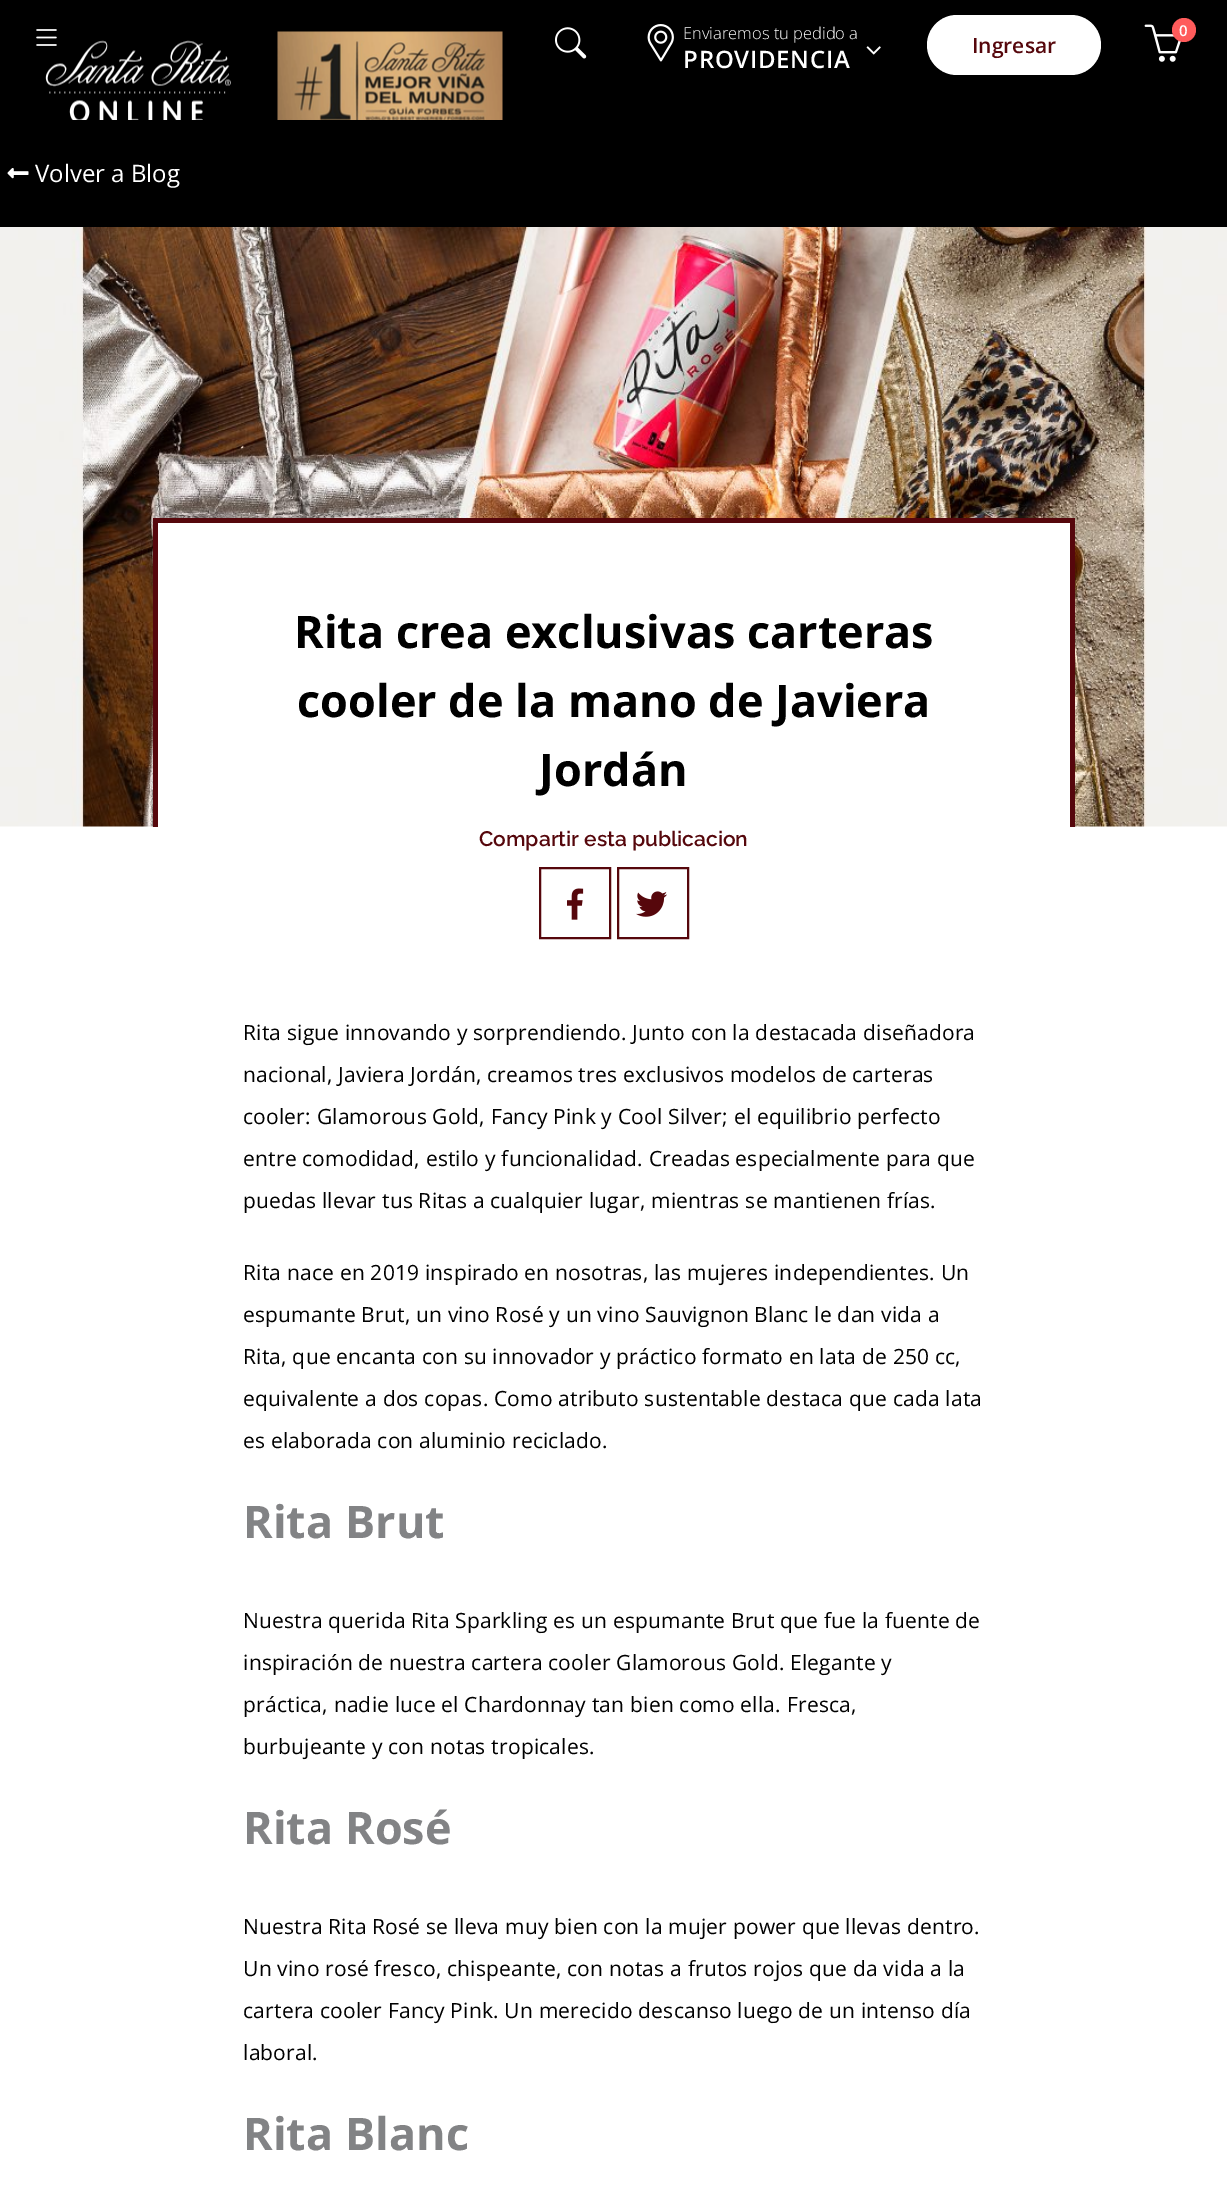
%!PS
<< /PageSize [1227 2195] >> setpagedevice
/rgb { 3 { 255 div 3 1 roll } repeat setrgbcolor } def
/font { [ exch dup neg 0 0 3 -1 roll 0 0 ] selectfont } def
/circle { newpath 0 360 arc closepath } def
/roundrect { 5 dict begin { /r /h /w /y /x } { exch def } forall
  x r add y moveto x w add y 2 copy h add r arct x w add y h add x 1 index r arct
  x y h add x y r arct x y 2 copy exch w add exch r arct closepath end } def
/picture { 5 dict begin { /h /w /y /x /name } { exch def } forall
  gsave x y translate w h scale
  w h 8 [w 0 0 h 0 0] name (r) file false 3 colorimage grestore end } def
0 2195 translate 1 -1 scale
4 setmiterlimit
0 0 0 rgb
0 0 1227 2195 rectfill
(img/1.rgb) 36 29 21 17 picture
(img/2.rgb) 45 40 186 80 picture
(img/3.rgb) 277 31 226 89 picture
(img/4.rgb) 555 27 32 32 picture
(img/5.rgb) 647 24 27 38 picture
(img/6.rgb) 866 46 15 9 picture
255 255 255 rgb
927 15 174 60 30 roundrect fill
(img/7.rgb) 1144 24 37 38 picture
255 91 91 rgb
1184 30 12 circle fill
255 255 255 rgb
0 826 1227 1369 rectfill
(img/8.rgb) 7 168 22 11 picture
(img/9.rgb) 0 227 1227 600 picture
[
  [158 523 912 304 255 255 255]
  [153 518 921 5 86 7 12]
  [1070 518 5 309 86 7 12]
  [153 518 5 309 86 7 12]
] { aload pop rgb rectfill } forall
2 setlinewidth
540 868 70 70 rectstroke
(img/10.rgb) 567 888 17 32 picture
618 868 70 70 rectstroke
(img/11.rgb) 636 891 31 26 picture
/OpenSans-Light 16.5 font
255 255 255 rgb
683 39 moveto (Enviaremos tu pedido a) show
/OpenSans-SemiBold 24 font
683 68 moveto 0.75 0 (PROVIDENCIA) ashow
/OpenSans-SemiBold 21 font
86 7 12 rgb
972 53 moveto (Ingresar) show
/OpenSans-SemiBold 15 font
255 255 255 rgb
1179 36 moveto (0) show
/OpenSans-Regular 24 font
35 182 moveto (Volver a Blog) show
/OpenSans-Bold 45 font
0 0 0 rgb
[
  [(Rita crea exclusivas carteras) 294 648]
  [(cooler de la mano de Javiera) 297 717]
  [(Jordán) 539 786]
] { aload pop moveto show } forall
/Raleway-SemiBold 21 font
86 7 12 rgb
479 846 moveto (Compartir esta publicacion) show
/OpenSans-Regular 21 font
0 0 0 rgb
243 1040 moveto 0.2 0 (Rita sigue innovando y sorprendiendo. Junto con la destacada diseñadora) ashow
243 1082 moveto 0.2 0 (nacional, Javiera Jordán, creamos tres exclusivos modelos de carteras) ashow
243 1124 moveto 0.2 0 (cooler: Glamorous Gold, Fancy Pink y Cool Silver; el equilibrio perfecto) ashow
243 1166 moveto 0.2 0 (entre comodidad, estilo y funcionalidad. Creadas especialmente para que) ashow
243 1208 moveto 0.2 0 (puedas llevar tus Ritas a cualquier lugar, mientras se mantienen frías.) ashow
243 1280 moveto 0.2 0 (Rita nace en 2019 inspirado en nosotras, las mujeres independientes. Un) ashow
243 1322 moveto 0.2 0 (espumante Brut, un vino Rosé y un vino Sauvignon Blanc le dan vida a) ashow
243 1364 moveto 0.2 0 (Rita, que encanta con su innovador y práctico formato en lata de 250 cc,) ashow
243 1406 moveto 0.2 0 (equivalente a dos copas. Como atributo sustentable destaca que cada lata) ashow
243 1448 moveto 0.2 0 (es elaborada con aluminio reciclado.) ashow
/OpenSans-Bold 45 font
130 131 133 rgb
243 1538 moveto (Rita Brut) show
/OpenSans-Regular 21 font
0 0 0 rgb
243 1628 moveto 0.2 0 (Nuestra querida Rita Sparkling es un espumante Brut que fue la fuente de) ashow
243 1670 moveto 0.2 0 (inspiración de nuestra cartera cooler Glamorous Gold. Elegante y) ashow
243 1712 moveto 0.2 0 (práctica, nadie luce el Chardonnay tan bien como ella. Fresca,) ashow
243 1754 moveto 0.2 0 (burbujeante y con notas tropicales.) ashow
/OpenSans-Bold 45 font
130 131 133 rgb
243 1844 moveto (Rita Rosé) show
/OpenSans-Regular 21 font
0 0 0 rgb
243 1934 moveto 0.2 0 (Nuestra Rita Rosé se lleva muy bien con la mujer power que llevas dentro.) ashow
243 1976 moveto 0.2 0 (Un vino rosé fresco, chispeante, con notas a frutos rojos que da vida a la) ashow
243 2018 moveto 0.2 0 (cartera cooler Fancy Pink. Un merecido descanso luego de un intenso día) ashow
243 2060 moveto 0.2 0 (laboral.) ashow
/OpenSans-Bold 45 font
130 131 133 rgb
243 2150 moveto (Rita Blanc) show
showpage
